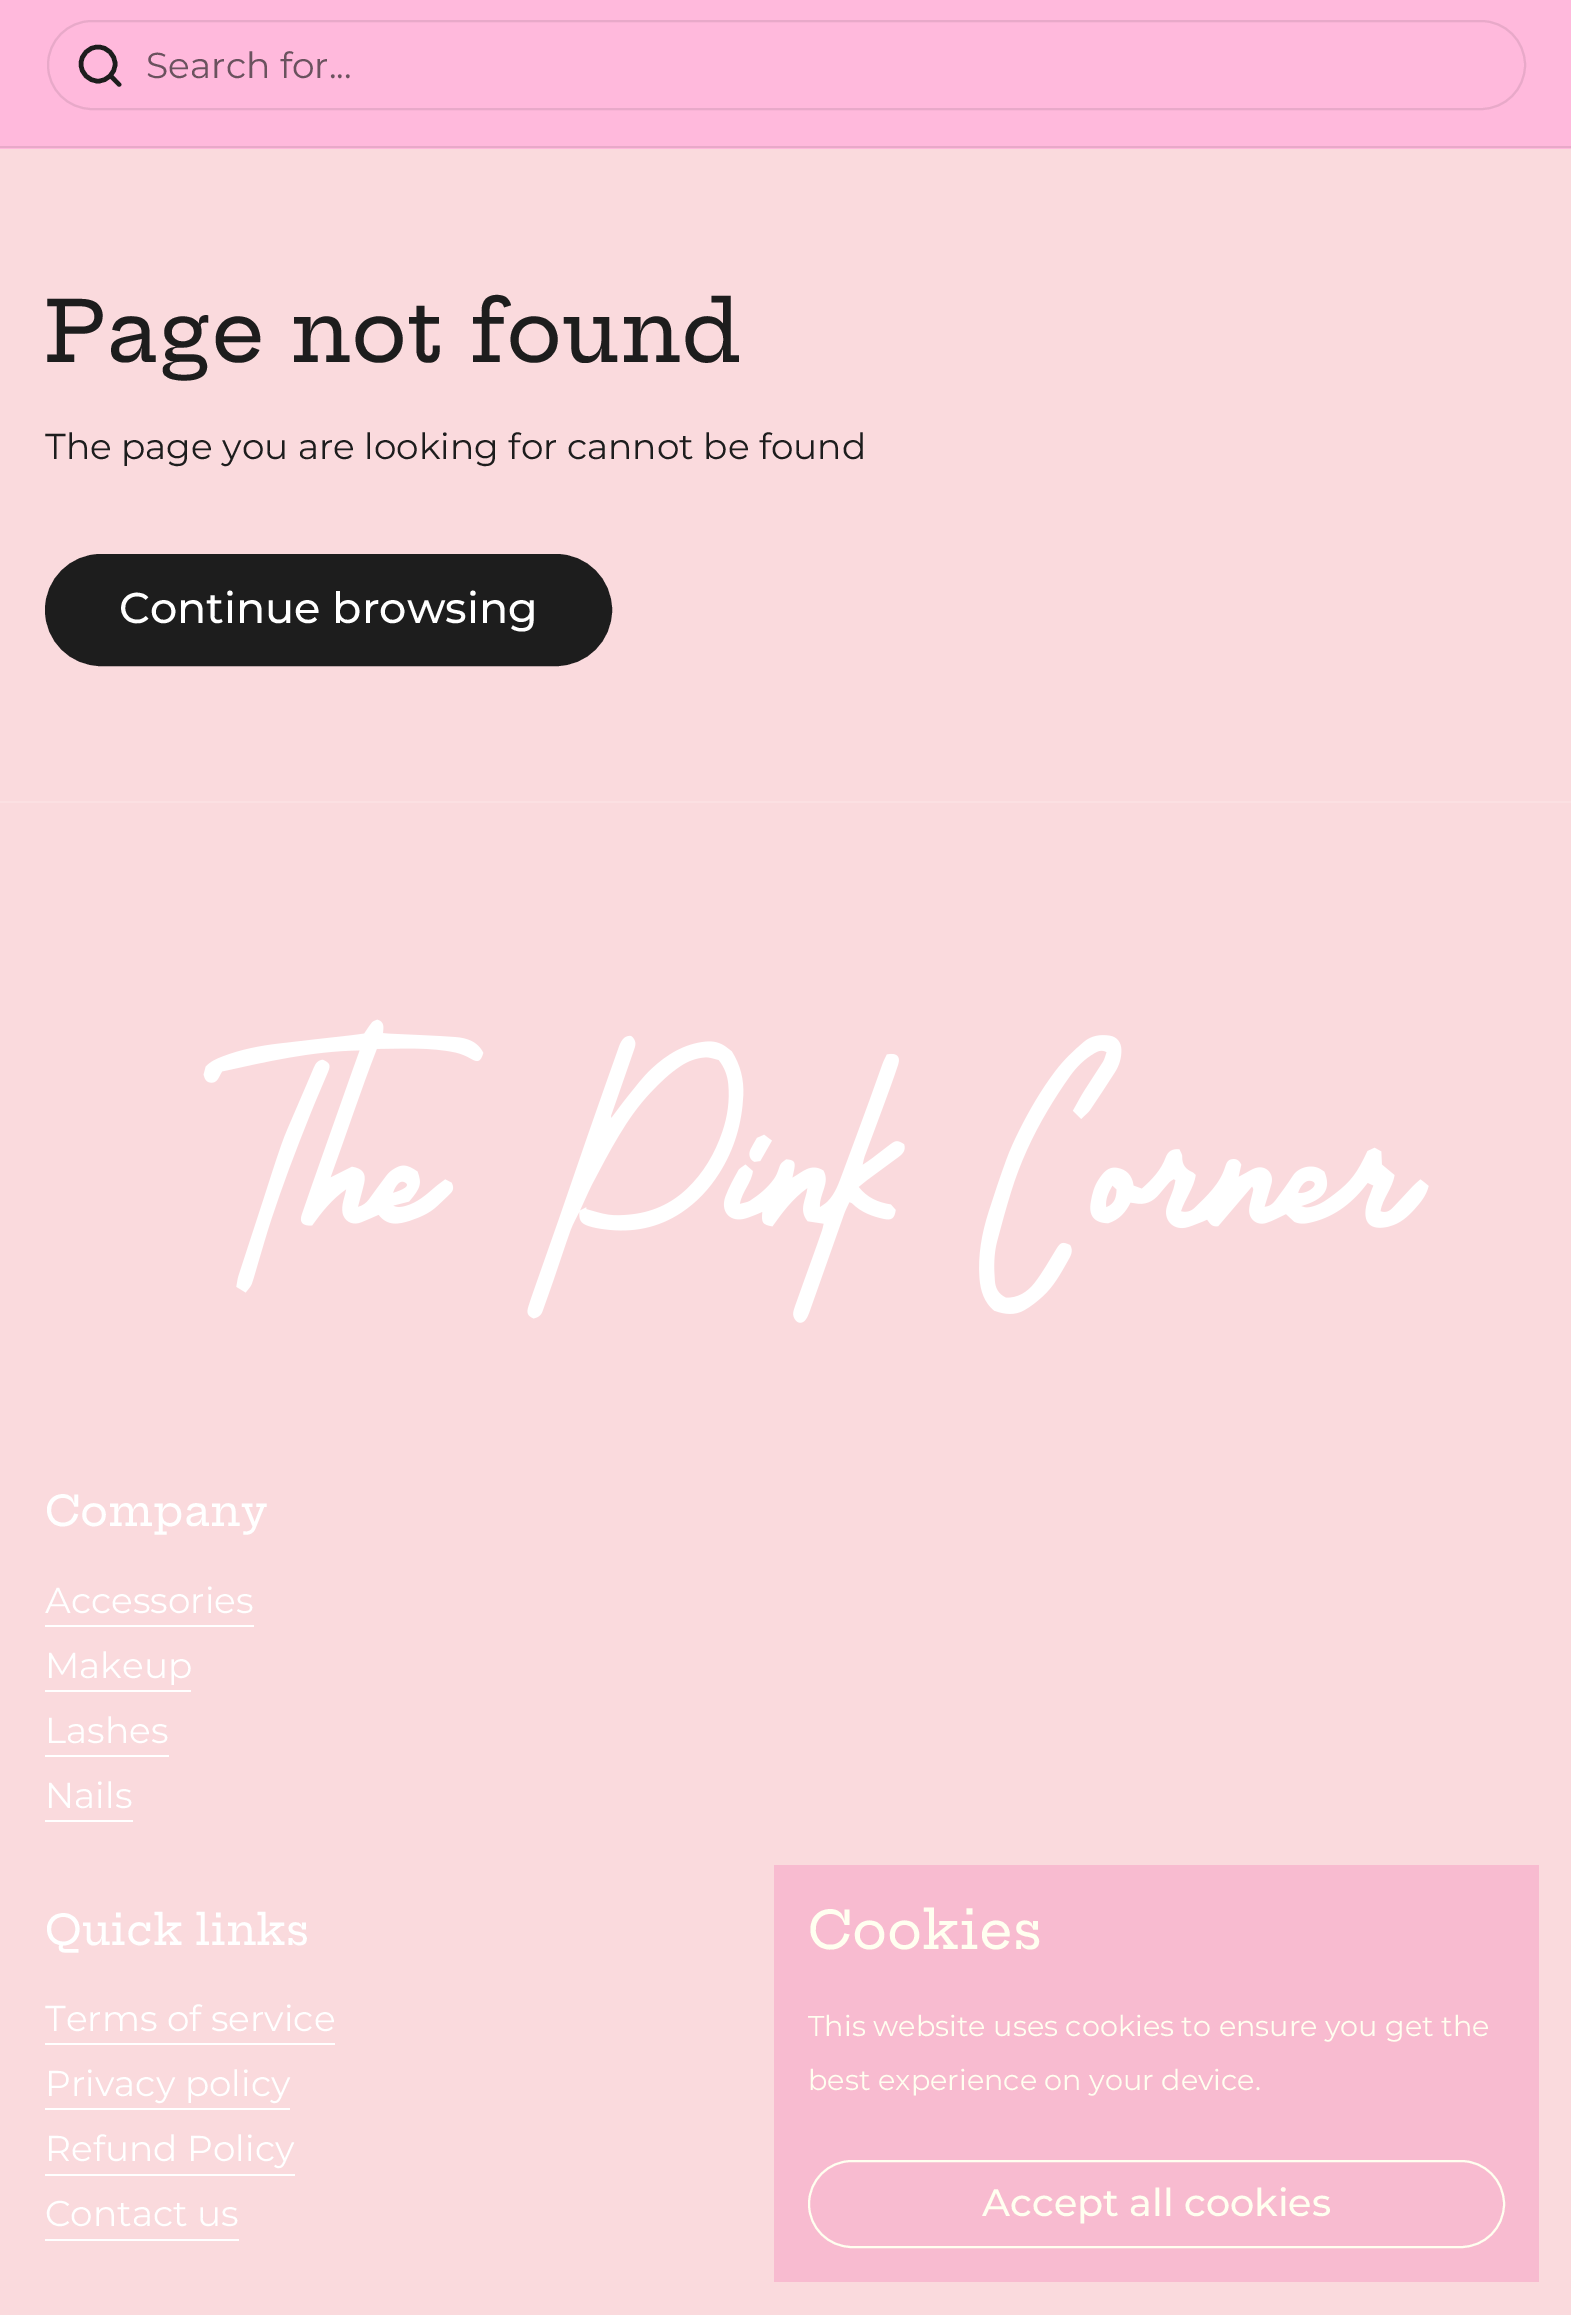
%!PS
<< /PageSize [1571 2315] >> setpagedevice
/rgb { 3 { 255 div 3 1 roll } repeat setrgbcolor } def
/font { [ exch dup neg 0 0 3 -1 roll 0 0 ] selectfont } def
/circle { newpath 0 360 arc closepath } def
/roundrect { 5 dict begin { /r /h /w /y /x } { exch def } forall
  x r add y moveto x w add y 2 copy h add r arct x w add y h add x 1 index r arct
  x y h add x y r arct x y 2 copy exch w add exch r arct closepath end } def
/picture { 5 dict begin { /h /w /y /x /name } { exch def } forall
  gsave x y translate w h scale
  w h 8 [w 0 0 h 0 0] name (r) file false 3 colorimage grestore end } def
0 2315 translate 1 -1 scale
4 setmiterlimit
250 218 221 rgb
0 0 1571 2315 rectfill
255 185 220 rgb
0 0 1571 149 rectfill
232 169 201 rgb
0 146 1571 2 rectfill
2 setlinewidth
48 21 1477 88 44 roundrect stroke
29 29 29 rgb
4.5 setlinewidth
98 64 17 circle stroke
113 75 moveto 111 73.5 lineto 108 76.5 lineto 109.5 78 lineto closepath 117.5 86 moveto 119.5 88 123 85 120.5 83 curveto closepath 109.5 78 moveto 117.5 86 lineto 120.5 83 lineto 113 75 lineto closepath fill
46 555 565 110 55 roundrect gsave fill grestore
2 setlinewidth
stroke
251 224 226 rgb
0 801 1571 2 rectfill
(img/1.rgb) 203 1019 1226 304 picture
[
  [45 1625 209 2 255 255 255]
  [45 1690 146 2 255 255 255]
  [45 1755 124 2 255 255 255]
  [45 1820 88 2 255 255 255]
  [45 2043 290 2 255 255 255]
  [45 2108 245 2 255 255 255]
  [45 2174 250 2 255 255 255]
  [45 2239 194 2 255 255 255]
  [774 1865 765 417 248 187 208]
] { aload pop rgb rectfill } forall
255 255 240 rgb
809 2161 695 86 43 roundrect stroke
/Montserrat-Regular 36 font
106 82 94 rgb
146 78 moveto (Search for...) show
/HeptaSlab-Medium 84 font
29 29 29 rgb
45 362 moveto (Page not found) show
/Montserrat-Regular 35.9 font
45 459 moveto (The page you are looking for cannot be found) show
/Montserrat-Medium 43 font
255 255 255 rgb
119 623 moveto (Continue browsing) show
/HeptaSlab-Medium 42 font
45 1526 moveto (Company) show
/Montserrat-Regular 35.9 font
[
  [(Accessories) 45 1613]
  [(Makeup) 45 1678]
  [(Lashes) 45 1743]
  [(Nails) 45 1808]
] { aload pop moveto show } forall
/HeptaSlab-Medium 42 font
45 1945 moveto (Quick links) show
/Montserrat-Regular 35.9 font
[
  [(Terms of service) 45 2031]
  [(Privacy policy) 45 2096]
  [(Refund Policy) 45 2161]
  [(Contact us) 45 2226]
] { aload pop moveto show } forall
/HeptaSlab-Medium 52.5 font
255 255 240 rgb
808 1949 moveto (Cookies) show
/Montserrat-Regular 28.7 font
808 2036 moveto (This website uses cookies to ensure you get the) show
808 2090 moveto (best experience on your device.) show
/Montserrat-Medium 38.25 font
982 2216 moveto (Accept all cookies) show
showpage
